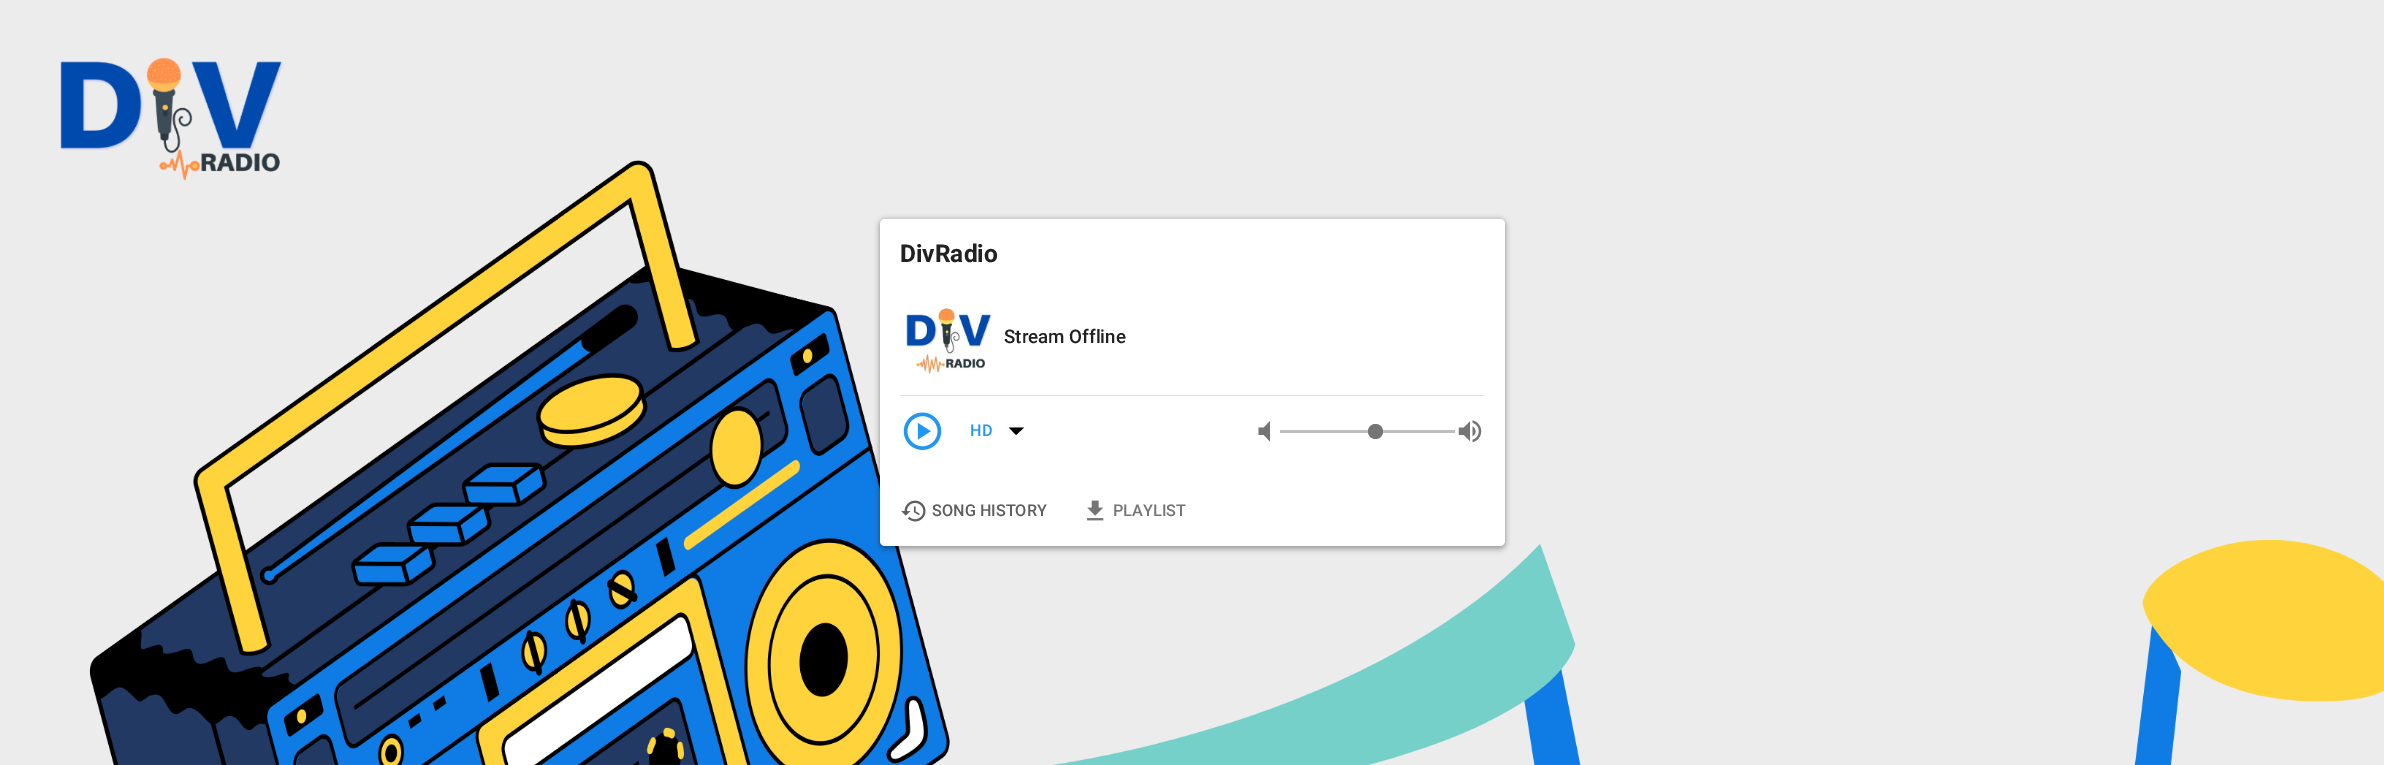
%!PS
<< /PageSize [2384 765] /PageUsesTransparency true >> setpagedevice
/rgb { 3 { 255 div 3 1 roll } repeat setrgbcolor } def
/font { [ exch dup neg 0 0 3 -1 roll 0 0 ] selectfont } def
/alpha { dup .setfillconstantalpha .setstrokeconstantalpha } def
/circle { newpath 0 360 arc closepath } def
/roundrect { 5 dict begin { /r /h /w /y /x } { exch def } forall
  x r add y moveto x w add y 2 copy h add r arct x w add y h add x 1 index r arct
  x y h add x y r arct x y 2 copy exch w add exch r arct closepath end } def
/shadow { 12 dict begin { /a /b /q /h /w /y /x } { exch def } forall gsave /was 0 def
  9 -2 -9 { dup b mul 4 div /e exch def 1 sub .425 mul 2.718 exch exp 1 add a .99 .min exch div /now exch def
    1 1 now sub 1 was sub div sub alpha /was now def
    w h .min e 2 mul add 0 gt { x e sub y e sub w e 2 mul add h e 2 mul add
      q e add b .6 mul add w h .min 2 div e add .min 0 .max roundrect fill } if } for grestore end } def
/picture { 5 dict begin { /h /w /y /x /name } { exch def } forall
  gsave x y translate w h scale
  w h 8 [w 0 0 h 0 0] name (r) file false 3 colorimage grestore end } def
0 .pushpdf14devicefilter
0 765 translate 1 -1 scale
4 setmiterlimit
237 236 236 rgb
0 0 2384 765 rectfill
(img/1.rgb) 60 57 2324 708 picture
0 0 0 rgb
880 220 625 328 5 3 0.2 shadow
880 223 625 327 5 2.5 0.12 shadow
880 219 625 327 5 2.5 0.14 shadow
255 255 255 rgb
880 219 625 327 5 roundrect fill
(img/2.rgb) 906 303 87 71 picture
224 224 224 rgb
900 395 585 1 rectfill
(img/3.rgb) 903 412 39 38 picture
0 0 0 rgb
1009 427.5 moveto 1024 427.5 lineto 1016 435 lineto closepath fill
117 117 117 rgb
1258.5 427.5 moveto 1264 427.5 lineto 1270 421 lineto 1270 441.5 lineto 1264 435 lineto 1258.5 435 lineto closepath fill
189 189 189 rgb
1280 430 175 3 rectfill
117 117 117 rgb
1375.5 431.5 7.5 circle fill
(img/4.rgb) 1458 420 24 23 picture
(img/5.rgb) 901 500 25 22 picture
(img/6.rgb) 1087 500 17 21 picture
/Roboto-Bold 24.5 font
33 33 33 rgb
900 262 moveto (DivRadio) show
/Roboto-Medium 18.75 font
1004 343 moveto (Stream Offline) show
/Roboto-Medium 16.25 font
33 150 243 rgb
970 436 moveto (HD) show
94 94 94 rgb
932 516 moveto (SONG HISTORY) show
117 117 117 rgb
1113 516 moveto (PLAYLIST) show
.poppdf14devicefilter showpage
